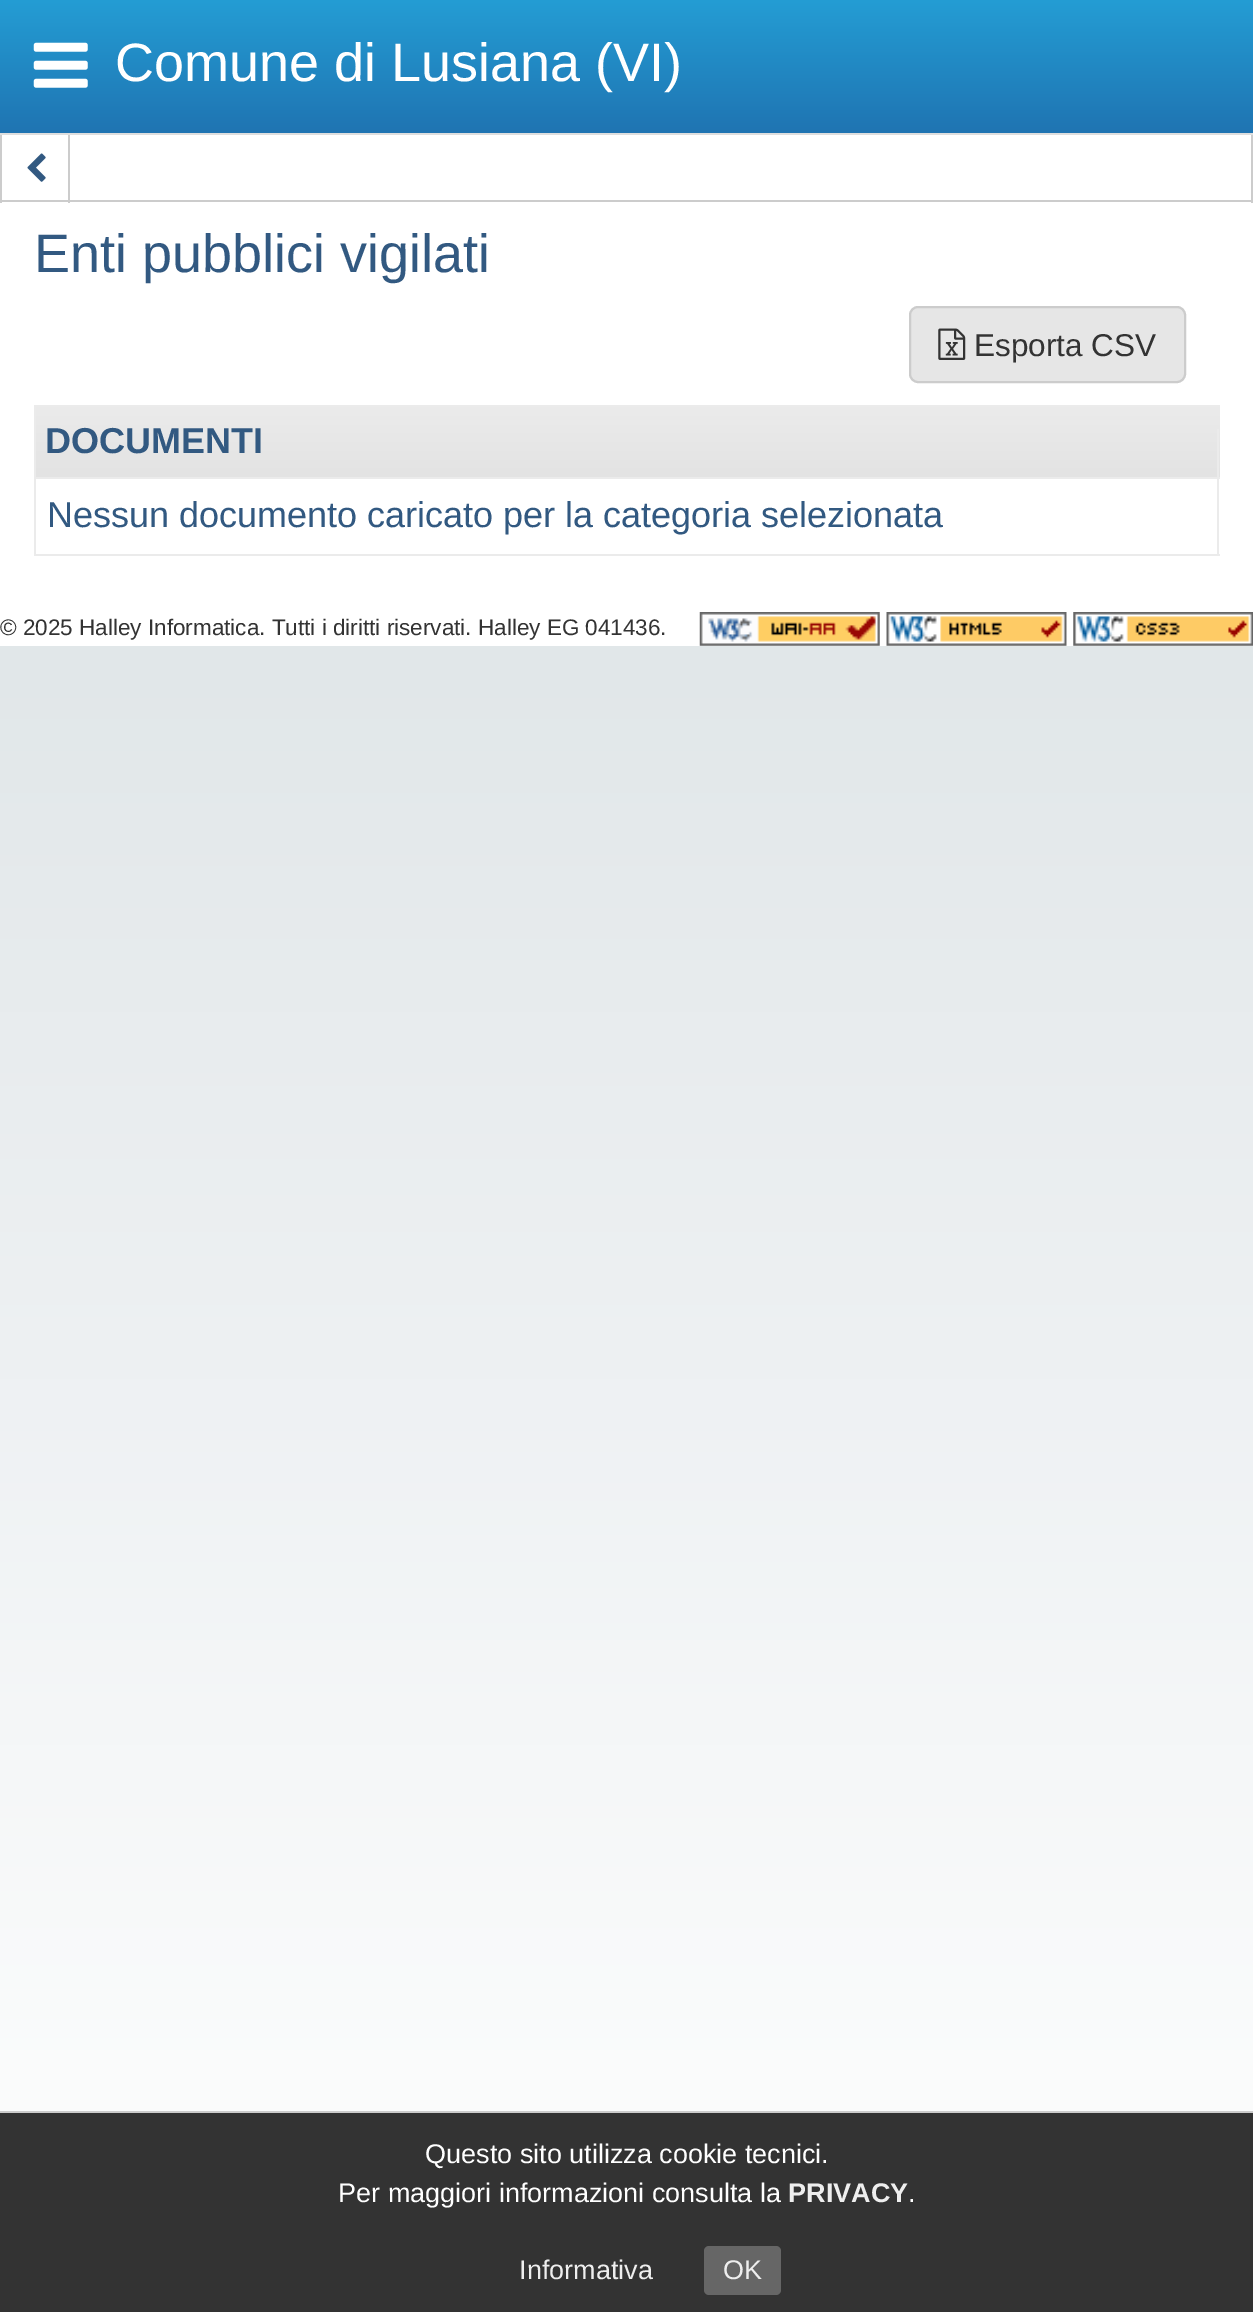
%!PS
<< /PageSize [1253 2312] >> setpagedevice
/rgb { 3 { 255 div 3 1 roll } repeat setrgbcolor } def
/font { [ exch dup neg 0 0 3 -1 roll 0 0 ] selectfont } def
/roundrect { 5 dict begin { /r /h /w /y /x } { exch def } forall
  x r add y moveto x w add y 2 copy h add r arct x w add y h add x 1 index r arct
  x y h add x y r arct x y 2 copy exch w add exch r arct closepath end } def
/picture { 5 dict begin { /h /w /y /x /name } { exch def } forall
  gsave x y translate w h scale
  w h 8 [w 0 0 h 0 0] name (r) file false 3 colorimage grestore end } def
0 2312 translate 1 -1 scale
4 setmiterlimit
255 255 255 rgb
0 0 1253 2312 rectfill
gsave 0 646 moveto 1253 646 lineto 1253 2111 lineto 0 2111 lineto closepath clip newpath
<< /ShadingType 2 /ColorSpace /DeviceRGB /Coords [627 0 627 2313] /Extend [true true] /Function << /FunctionType 2 /Domain [0 1] /C0 [0.839 0.867 0.882] /C1 [1 1 1] /N 1 >> >> shfill grestore
gsave 0 0 moveto 1253 0 lineto 1253 133 lineto 0 133 lineto closepath clip newpath
<< /ShadingType 2 /ColorSpace /DeviceRGB /Coords [627 0 627 133] /Extend [true true] /Function << /FunctionType 2 /Domain [0 1] /C0 [0.141 0.616 0.831] /C1 [0.122 0.455 0.698] /N 1 >> >> shfill grestore
(img/1.rgb) 33 42 55 46 picture
[
  [0 133 1253 2 222 222 222]
  [1251 135 2 68 204 204 204]
  [0 200 1253 2 204 204 204]
  [0 135 2 68 204 204 204]
  [68 135 2 68 204 204 204]
] { aload pop rgb rectfill } forall
(img/2.rgb) 27 153 19 29 picture
230 230 230 rgb
910 307 275 75 8 roundrect gsave fill grestore
204 204 204 rgb
2 setlinewidth
stroke
(img/3.rgb) 938 328 28 32 picture
235 235 235 rgb
34 405 1186 2 rectfill
gsave 36 407 moveto 1220 407 lineto 1220 477 lineto 36 477 lineto closepath clip newpath
<< /ShadingType 2 /ColorSpace /DeviceRGB /Coords [627 407 627 477] /Extend [true true] /Function << /FunctionType 2 /Domain [0 1] /C0 [0.922 0.922 0.922] /C1 [0.89 0.89 0.89] /N 1 >> >> shfill grestore
gsave 36 477 moveto 1220 477 lineto 1220 479 lineto 36 479 lineto closepath clip newpath
<< /ShadingType 2 /ColorSpace /DeviceRGB /Coords [627 477 627 547] /Extend [true true] /Function << /FunctionType 2 /Domain [0 1] /C0 [0.922 0.922 0.922] /C1 [0.89 0.89 0.89] /N 1 >> >> shfill grestore
[
  [1217 429 2 127 235 235 235]
  [34 554 1186 2 235 235 235]
  [34 405 2 151 235 235 235]
] { aload pop rgb rectfill } forall
(img/4.rgb) 699 612 181 34 picture
(img/5.rgb) 886 612 181 34 picture
(img/6.rgb) 1073 612 180 34 picture
51 51 51 rgb
0 2113 1253 199 rectfill
204 204 204 rgb
0 2111 1253 2 rectfill
102 102 102 rgb
704 2246 77 49 5 roundrect fill
/LiberationSans-Regular 54 font
255 255 255 rgb
115 81 moveto (Comune di Lusiana \(VI\)) show
50 89 129 rgb
34 272 moveto (Enti pubblici vigilati) show
/LiberationSans-Regular 31.5 font
51 51 51 rgb
974 356 moveto (Esporta CSV) show
/LiberationSans-Bold 36 font
50 89 129 rgb
45 453 moveto (DOCUMENTI) show
/LiberationSans-Regular 36 font
47 527 moveto (Nessun documento caricato per la categoria selezionata) show
/LiberationSans-Regular 22.5 font
51 51 51 rgb
0 635 moveto (© 2025 Halley Informatica. Tutti i diritti riservati. Halley EG 041436.) show
/LiberationSans-Regular 27 font
255 255 255 rgb
425 2163 moveto (Questo sito utilizza cookie tecnici.) show
338 2202 moveto (Per maggiori informazioni consulta la) show
/LiberationSans-Bold 27 font
238 238 238 rgb
788 2202 moveto (PRIVACY) show
/LiberationSans-Regular 27 font
255 255 255 rgb
908 2202 moveto (.) show
238 238 238 rgb
519 2279 moveto (Informativa) show
723 2279 moveto (OK) show
showpage
